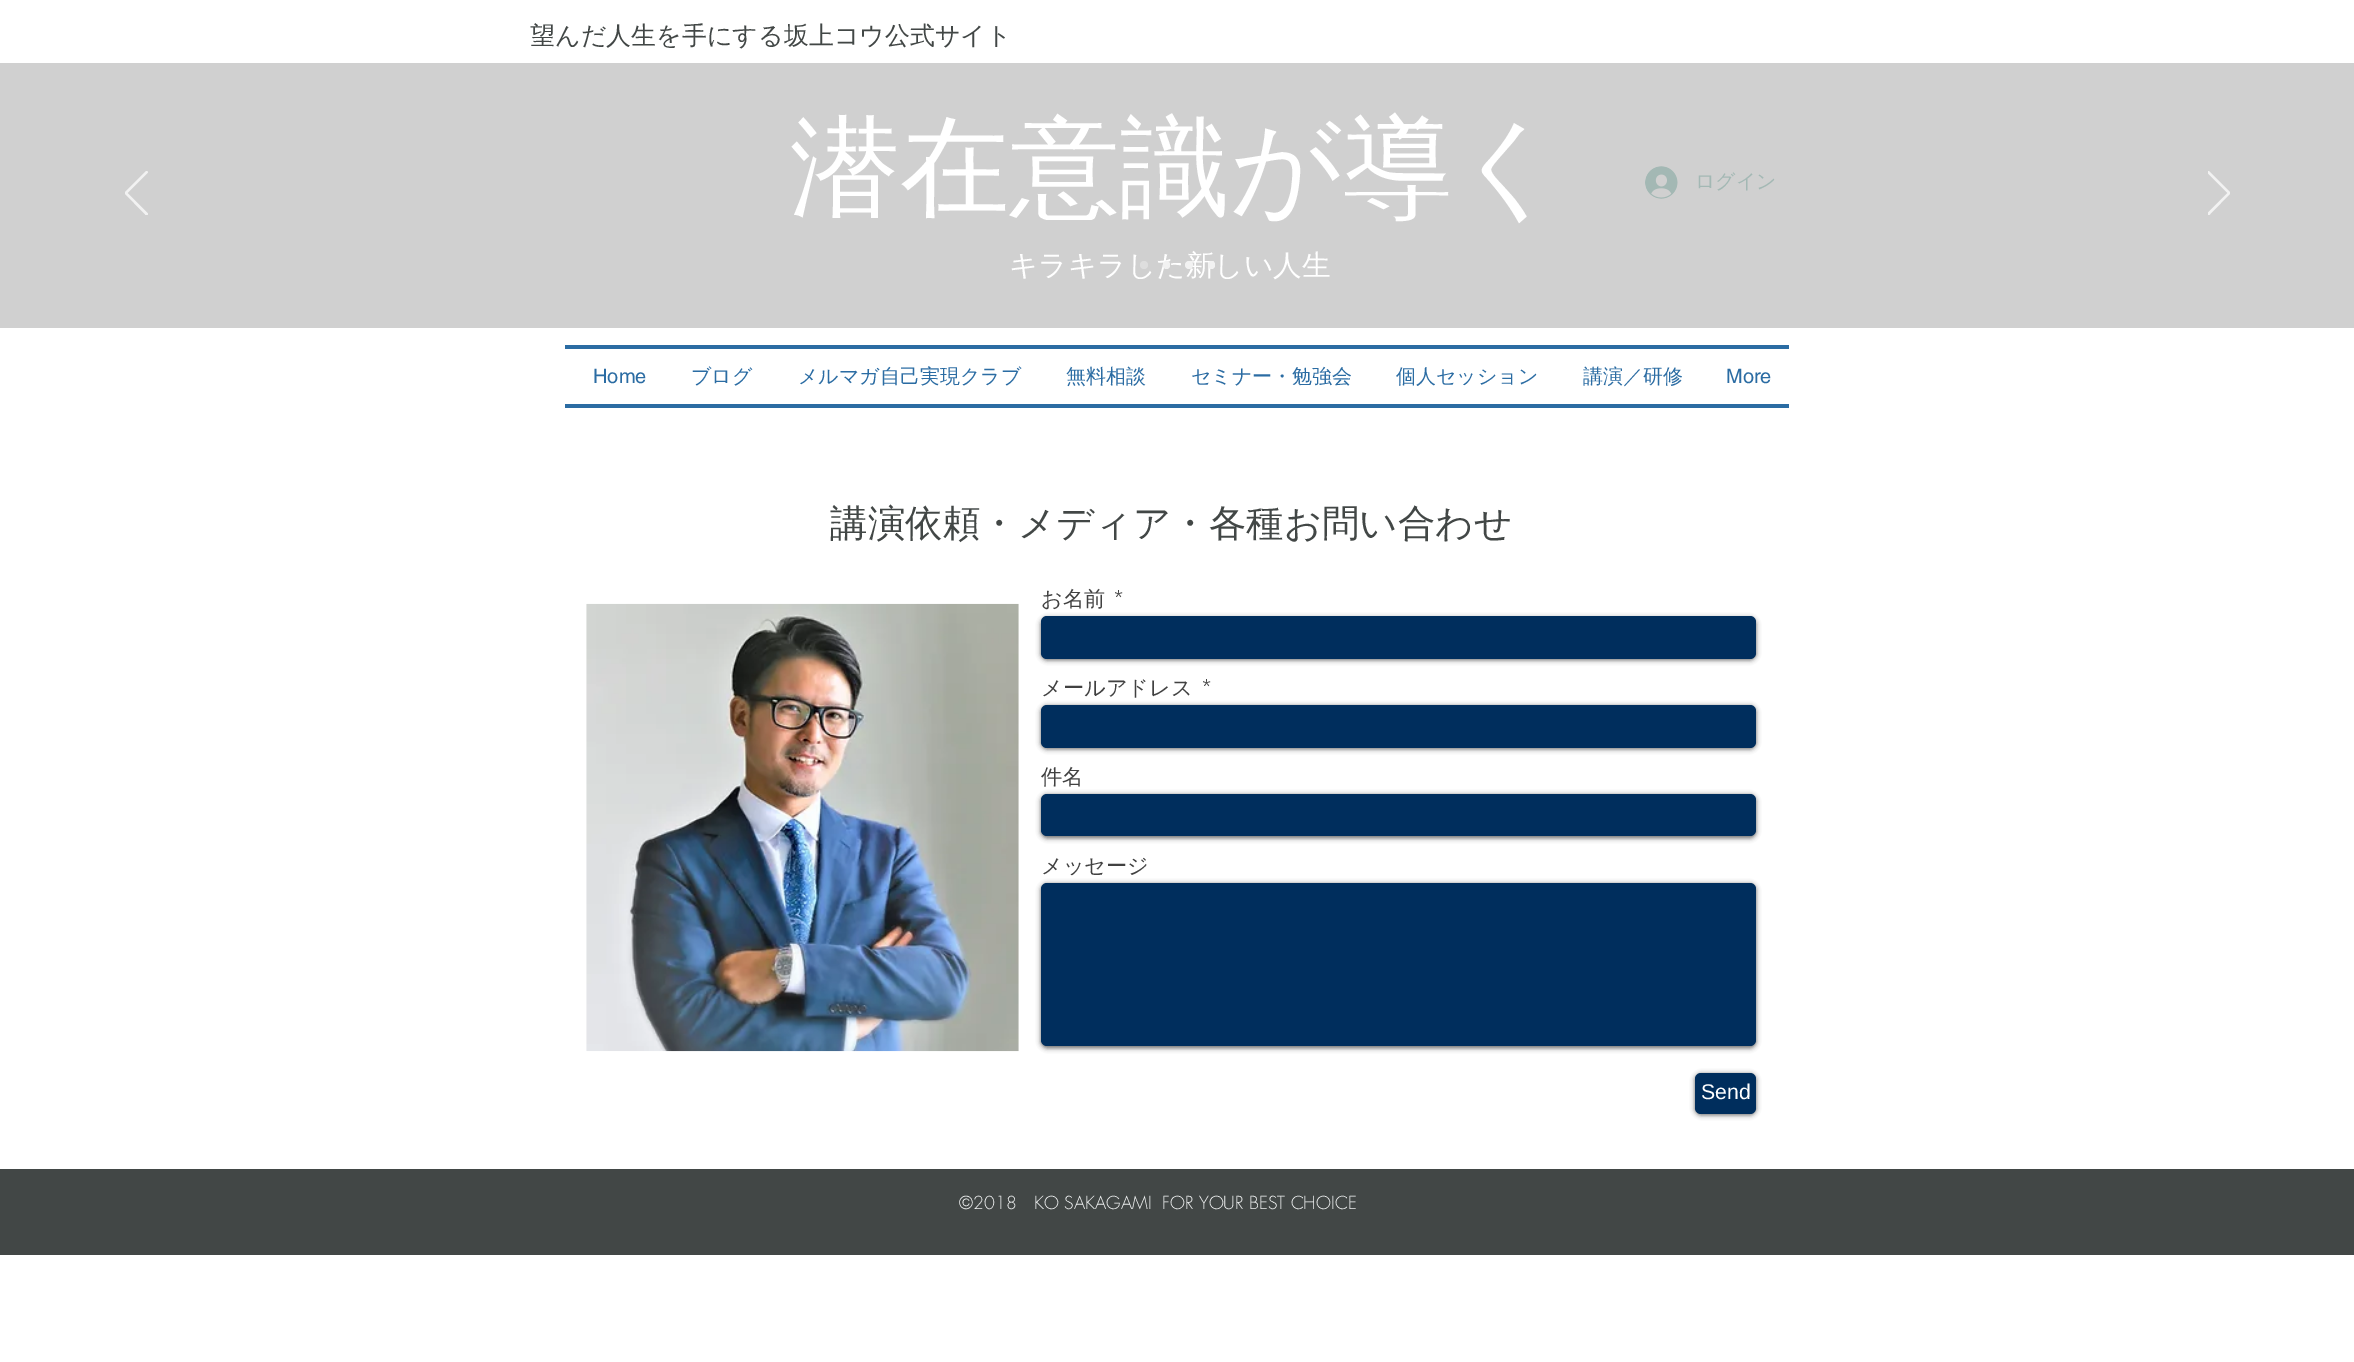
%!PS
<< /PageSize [2354 1362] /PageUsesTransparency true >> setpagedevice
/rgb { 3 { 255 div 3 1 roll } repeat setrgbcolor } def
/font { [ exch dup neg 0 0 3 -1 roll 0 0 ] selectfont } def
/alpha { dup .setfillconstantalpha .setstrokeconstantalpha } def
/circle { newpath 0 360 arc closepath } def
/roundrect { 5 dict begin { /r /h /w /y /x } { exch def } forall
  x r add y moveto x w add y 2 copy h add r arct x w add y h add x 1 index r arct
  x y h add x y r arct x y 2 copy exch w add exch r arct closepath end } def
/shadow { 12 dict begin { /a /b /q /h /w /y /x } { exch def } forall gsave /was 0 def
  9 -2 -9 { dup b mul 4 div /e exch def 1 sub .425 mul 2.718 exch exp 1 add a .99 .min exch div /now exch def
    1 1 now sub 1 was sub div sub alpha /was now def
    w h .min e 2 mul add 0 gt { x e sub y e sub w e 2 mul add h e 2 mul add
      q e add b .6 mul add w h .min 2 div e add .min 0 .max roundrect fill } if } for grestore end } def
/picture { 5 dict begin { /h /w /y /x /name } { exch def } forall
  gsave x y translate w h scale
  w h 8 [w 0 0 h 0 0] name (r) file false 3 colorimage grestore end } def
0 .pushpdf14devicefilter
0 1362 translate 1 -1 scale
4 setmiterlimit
255 255 255 rgb
0 0 2354 1362 rectfill
208 208 208 rgb
0 63 2354 265 rectfill
gsave
125 171 23 44 rectclip
242 242 242 rgb
1.1 setlinewidth
146.5 215 moveto 125 193 lineto 146.5 171.5 lineto 147.5 172 lineto 126.5 193 lineto 147.5 214 lineto closepath stroke
grestore
gsave
2208 171 22 44 rectclip
242 242 242 rgb
1.1 setlinewidth
2208.5 215 moveto 2230 193 lineto 2208.5 171.5 lineto 2207.5 172 lineto 2228.5 193 lineto 2207.5 214 lineto closepath stroke
grestore
(img/1.rgb) 1645 166 33 33 picture
43 108 163 rgb
565 345 1224 4 rectfill
565 404 1224 4 rectfill
(img/2.rgb) 586 603 433 449 picture
0 0 0 rgb
1041 618 715 42 6 2.5 0.6 shadow
0 46 93 rgb
1041 616 715 43 6 roundrect fill
0 0 0 rgb
1041 706 715 43 6 2.5 0.6 shadow
0 46 93 rgb
1041 705 715 43 6 roundrect fill
0 0 0 rgb
1041 795 715 43 6 2.5 0.6 shadow
0 46 93 rgb
1041 794 715 42 6 roundrect fill
0 0 0 rgb
1041 884 715 164 6 2.5 0.6 shadow
0 46 93 rgb
1041 883 715 163 6 roundrect fill
0 0 0 rgb
1695 1074 61 41 6 2.5 0.6 shadow
0 46 93 rgb
1695 1073 61 41 6 roundrect fill
66 71 70 rgb
0 1169 2354 86 rectfill
/WenQuanYiZenHei-Medium 25 font
530 44 moveto (望んだ人生を手にする坂上コウ公式サイト) show
/WenQuanYiZenHei-Medium 110 font
255 255 255 rgb
790 205 moveto (潜在意識が導く) show
/WenQuanYiZenHei-Medium 28.75 font
1009 275 moveto (キラキラした新しい人生) show
222 222 222 rgb
1144 265 4 circle fill
242 242 242 rgb
1163 261 7 8 3.5 roundrect fill
1189 265 4 circle fill
1208 261 7 8 3.5 roundrect fill
/WenQuanYiZenHei-Medium 20 font
163 184 180 rgb
1695 188 moveto (ログイン) show
/helvetica-Regular 20 font
43 108 163 rgb
593 383 moveto (Home) show
/WenQuanYiZenHei-Medium 20 font
[
  [(ブログ) 691 383]
  [(メルマガ自己実現クラブ) 798 383]
  [(無料相談) 1066 383]
  [(セミナー・勉強会) 1191 383]
  [(個人セッション) 1396 383]
  [(講演／研修) 1583 383]
] { aload pop moveto show } forall
/helvetica-Regular 20 font
1726 383 moveto (More) show
/WenQuanYiZenHei-Medium 37.5 font
66 71 70 rgb
830 536 moveto (講演依頼・メディア・各種お問い合わせ) show
/WenQuanYiZenHei-Medium 21.25 font
65 65 65 rgb
1041 606 moveto (お名前) show
/futura-Light 21.25 font
1112 606 moveto (*) show
/WenQuanYiZenHei-Medium 21.25 font
1041 695 moveto (メールアドレス) show
/futura-Light 21.25 font
1200 695 moveto (*) show
/WenQuanYiZenHei-Medium 21.25 font
1041 784 moveto (件名) show
1041 873 moveto (メッセージ) show
/LiberationSans-Regular 21.25 font
255 255 255 rgb
1701 1099 moveto (Send) show
/futura-Light 17.5 font
240 242 242 rgb
959 1209 moveto (©2018) show
1034 1209 moveto (KO SAKAGAMI  FOR YOUR BEST CHOICE) show
.poppdf14devicefilter showpage
